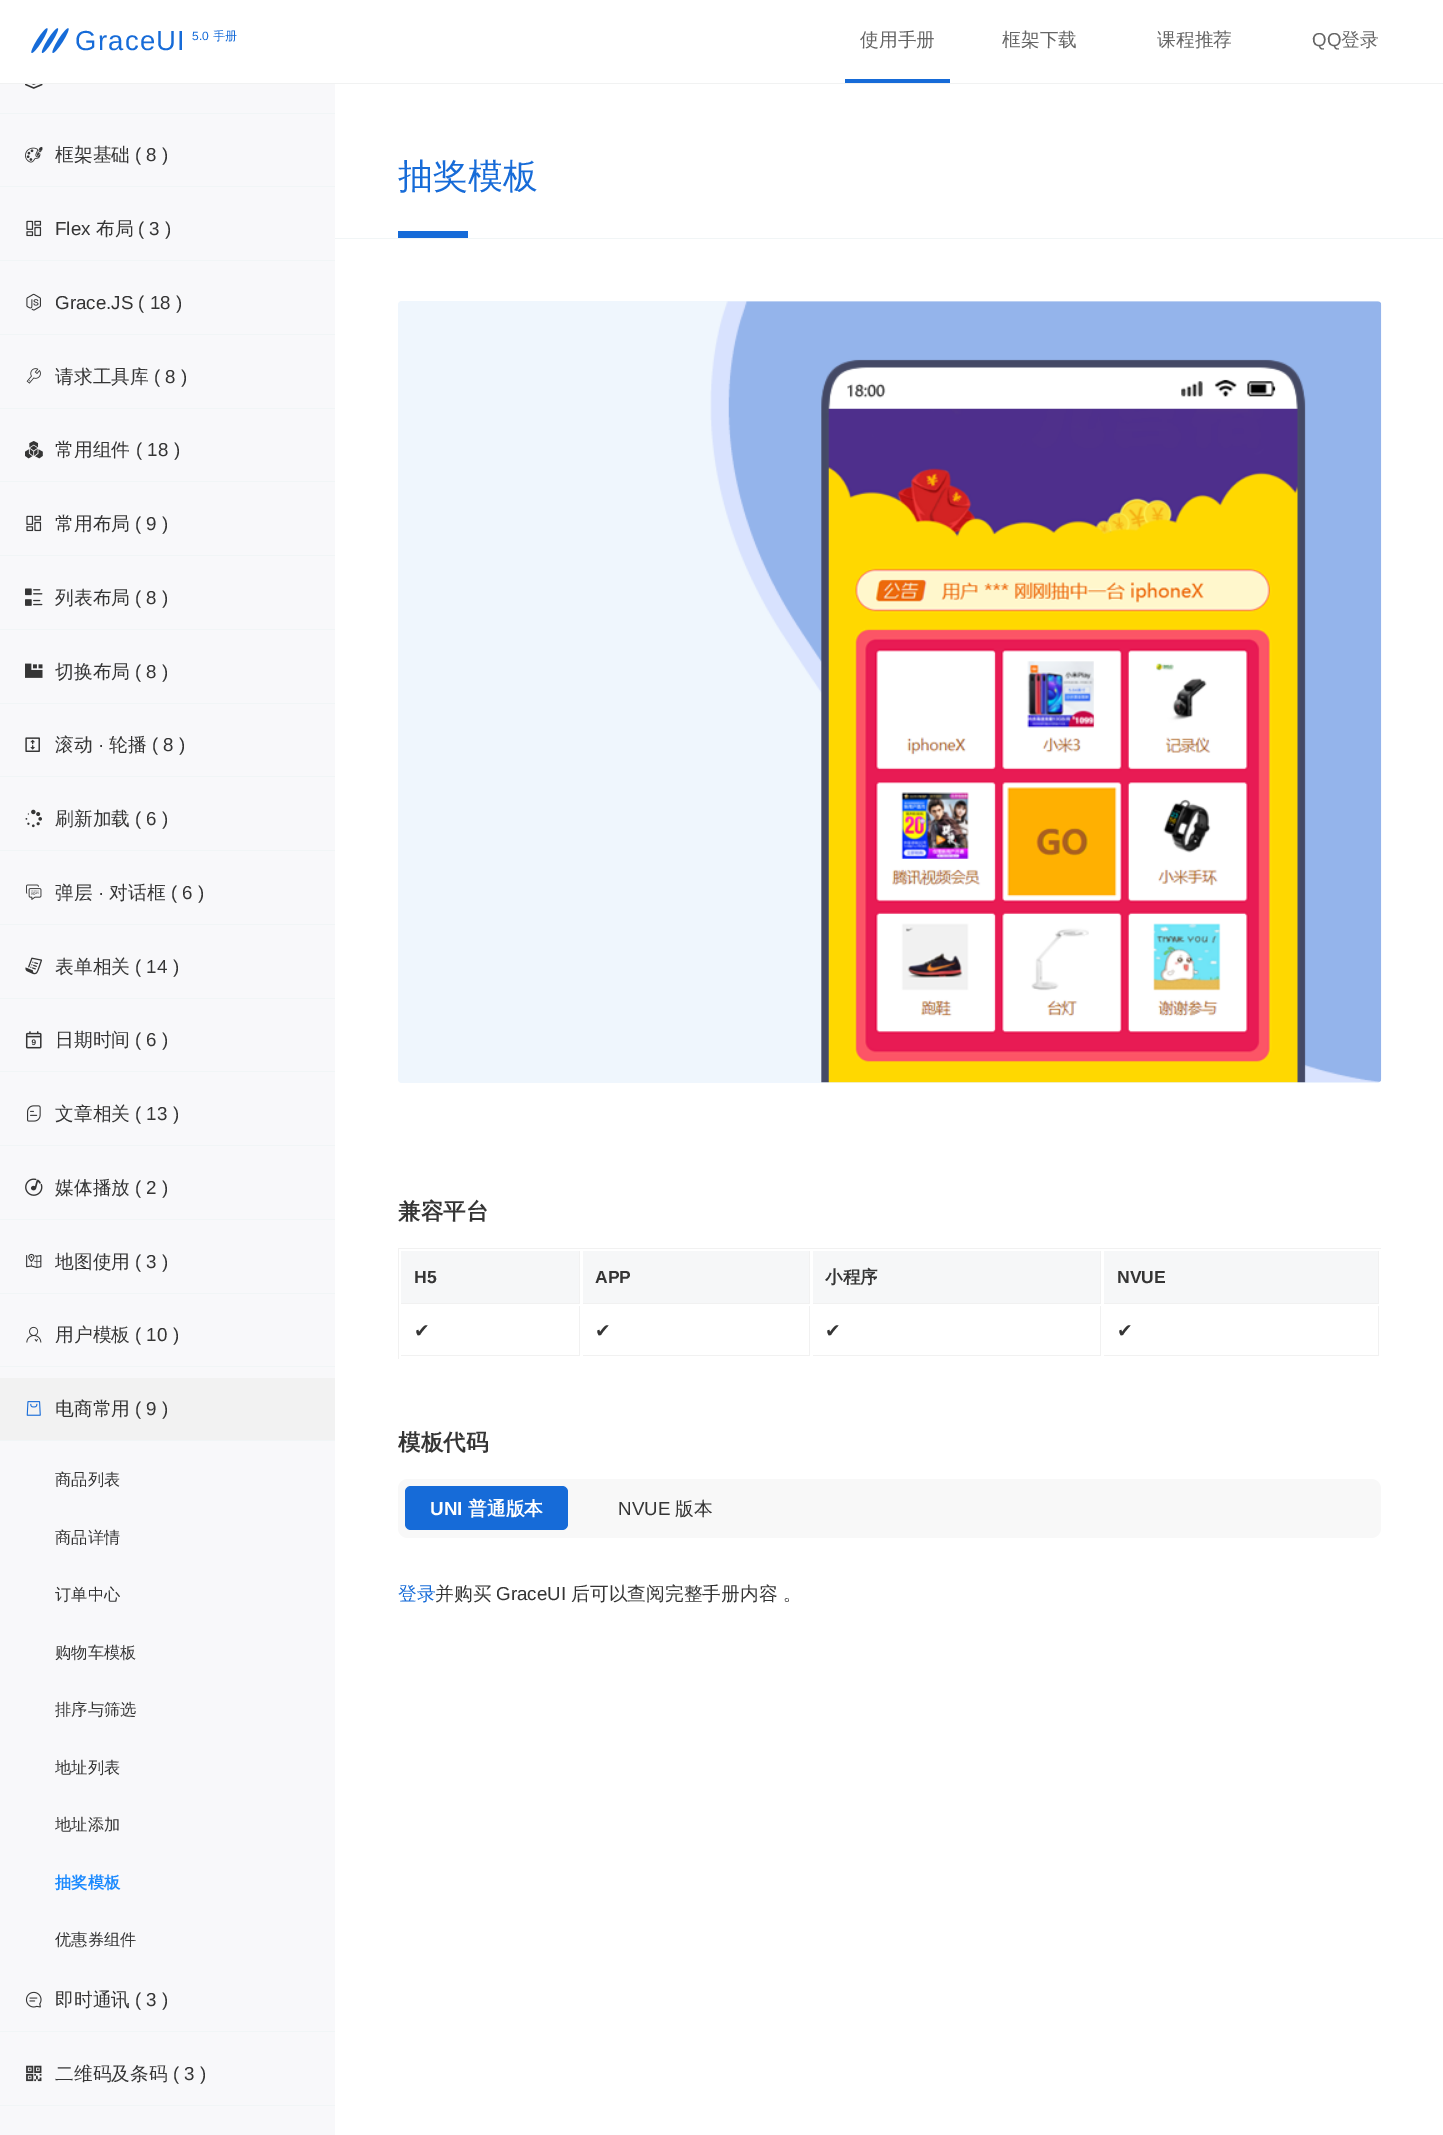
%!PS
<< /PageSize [1443 2135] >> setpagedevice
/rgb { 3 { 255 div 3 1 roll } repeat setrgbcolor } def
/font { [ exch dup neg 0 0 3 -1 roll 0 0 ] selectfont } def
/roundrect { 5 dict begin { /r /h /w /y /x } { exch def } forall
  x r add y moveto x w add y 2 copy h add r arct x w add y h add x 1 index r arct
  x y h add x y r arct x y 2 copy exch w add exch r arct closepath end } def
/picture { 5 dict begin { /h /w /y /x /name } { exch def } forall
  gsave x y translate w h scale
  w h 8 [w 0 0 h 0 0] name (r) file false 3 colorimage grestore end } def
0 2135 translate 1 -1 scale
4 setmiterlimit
255 255 255 rgb
0 0 1443 2135 rectfill
241 242 242 rgb
0 83 1443 1 rectfill
(img/1.rgb) 31 28 38 25 picture
[
  [845 79 105 4 22 107 216]
  [0 84 335 2051 248 248 250]
  [0 113 335 1 241 245 246]
] { aload pop rgb rectfill } forall
(img/2.rgb) 25 84 18 5 picture
0 186 335 1 rectfill
(img/3.rgb) 25 146 18 17 picture
0 260 335 1 rectfill
(img/4.rgb) 26 220 16 17 picture
0 334 335 1 rectfill
(img/5.rgb) 26 293 15 18 picture
0 408 335 1 rectfill
(img/6.rgb) 26 368 15 16 picture
0 481 335 1 rectfill
(img/7.rgb) 25 441 18 18 picture
0 555 335 1 rectfill
(img/4.rgb) 26 515 16 17 picture
0 629 335 1 rectfill
(img/8.rgb) 25 588 18 18 picture
0 703 335 1 rectfill
(img/9.rgb) 25 663 18 15 picture
0 776 335 1 rectfill
(img/10.rgb) 25 737 15 15 picture
0 850 335 1 rectfill
(img/11.rgb) 25 809 17 19 picture
0 924 335 1 rectfill
(img/12.rgb) 26 884 16 16 picture
0 998 335 1 rectfill
(img/13.rgb) 25 957 18 18 picture
0 1071 335 1 rectfill
(img/14.rgb) 25 1031 17 18 picture
0 1145 335 1 rectfill
(img/15.rgb) 27 1105 14 17 picture
0 1219 335 1 rectfill
(img/16.rgb) 25 1178 18 18 picture
0 1293 335 1 rectfill
(img/17.rgb) 26 1253 16 15 picture
0 1366 335 1 rectfill
(img/18.rgb) 26 1326 16 17 picture
242 242 242 rgb
0 1378 335 62 rectfill
241 245 246 rgb
0 1440 335 1 rectfill
(img/19.rgb) 26 1401 15 15 picture
0 2031 335 1 rectfill
(img/20.rgb) 25 1991 17 17 picture
0 2105 335 1 rectfill
(img/21.rgb) 26 2065 16 17 picture
335 238 1108 1 rectfill
22 107 216 rgb
398 231 70 7 rectfill
239 246 253 rgb
398 301 983 782 4 roundrect fill
(img/22.rgb) 710 301 672 782 picture
[
  [398 1248 983 1 241 241 241]
  [398 1248 1 111 241 241 241]
  [401 1251 178 52 246 247 248]
  [579 1251 1 53 241 241 241]
  [401 1303 179 1 241 241 241]
  [583 1251 226 52 246 247 248]
  [809 1251 1 53 241 241 241]
  [583 1303 227 1 241 241 241]
  [813 1251 287 52 246 247 248]
  [1100 1251 1 53 241 241 241]
  [813 1303 288 1 241 241 241]
  [1104 1251 274 52 246 247 248]
  [1378 1251 1 53 241 241 241]
  [1104 1303 275 1 241 241 241]
  [579 1306 1 50 241 241 241]
  [401 1355 179 1 241 241 241]
  [809 1306 1 50 241 241 241]
  [583 1355 227 1 241 241 241]
  [1100 1306 1 50 241 241 241]
  [813 1355 288 1 241 241 241]
  [1378 1306 1 50 241 241 241]
  [1104 1355 275 1 241 241 241]
] { aload pop rgb rectfill } forall
248 248 248 rgb
398 1479 983 59 10 roundrect fill
22 107 216 rgb
405 1486 163 44 6 roundrect fill
/LiberationSans-Regular 27.5 font
75 50 moveto 1.25 0 (GraceUI) ashow
/LiberationSans-Regular 12 font
192 40 moveto (5.0) show
/WenQuanYiZenHei-Medium 12 font
213 40 moveto (手册) show
/WenQuanYiZenHei-Medium 18.75 font
101 101 101 rgb
[
  [(使用手册) 860 46]
  [(框架下载) 1002 46]
  [(课程推荐) 1157 46]
] { aload pop moveto show } forall
/LiberationSans-Regular 18.75 font
1312 46 moveto (QQ) show
/WenQuanYiZenHei-Medium 18.75 font
1341 46 moveto (登录) show
53 53 53 rgb
55 161 moveto (框架基础) show
/LiberationSans-Regular 18.75 font
135 161 moveto (\( 8 \)) show
55 235 moveto (Flex) show
/WenQuanYiZenHei-Medium 18.75 font
96 235 moveto (布局) show
/LiberationSans-Regular 18.75 font
138 235 moveto (\( 3 \)) show
55 309 moveto (Grace.JS \( 18 \)) show
/WenQuanYiZenHei-Medium 18.75 font
55 383 moveto (请求工具库) show
/LiberationSans-Regular 18.75 font
154 383 moveto (\( 8 \)) show
/WenQuanYiZenHei-Medium 18.75 font
55 456 moveto (常用组件) show
/LiberationSans-Regular 18.75 font
136 456 moveto (\( 18 \)) show
/WenQuanYiZenHei-Medium 18.75 font
55 530 moveto (常用布局) show
/LiberationSans-Regular 18.75 font
135 530 moveto (\( 9 \)) show
/WenQuanYiZenHei-Medium 18.75 font
55 604 moveto (列表布局) show
/LiberationSans-Regular 18.75 font
135 604 moveto (\( 8 \)) show
/WenQuanYiZenHei-Medium 18.75 font
55 678 moveto (切换布局) show
/LiberationSans-Regular 18.75 font
135 678 moveto (\( 8 \)) show
/WenQuanYiZenHei-Medium 18.75 font
55 751 moveto (滚动) show
/LiberationSans-Regular 18.75 font
98 751 moveto (·) show
/WenQuanYiZenHei-Medium 18.75 font
109 751 moveto (轮播) show
/LiberationSans-Regular 18.75 font
152 751 moveto (\( 8 \)) show
/WenQuanYiZenHei-Medium 18.75 font
55 825 moveto (刷新加载) show
/LiberationSans-Regular 18.75 font
135 825 moveto (\( 6 \)) show
/WenQuanYiZenHei-Medium 18.75 font
55 899 moveto (弹层) show
/LiberationSans-Regular 18.75 font
98 899 moveto (·) show
/WenQuanYiZenHei-Medium 18.75 font
109 899 moveto (对话框) show
/LiberationSans-Regular 18.75 font
171 899 moveto (\( 6 \)) show
/WenQuanYiZenHei-Medium 18.75 font
55 973 moveto (表单相关) show
/LiberationSans-Regular 18.75 font
135 973 moveto (\( 14 \)) show
/WenQuanYiZenHei-Medium 18.75 font
55 1046 moveto (日期时间) show
/LiberationSans-Regular 18.75 font
135 1046 moveto (\( 6 \)) show
/WenQuanYiZenHei-Medium 18.75 font
55 1120 moveto (文章相关) show
/LiberationSans-Regular 18.75 font
135 1120 moveto (\( 13 \)) show
/WenQuanYiZenHei-Medium 18.75 font
55 1194 moveto (媒体播放) show
/LiberationSans-Regular 18.75 font
135 1194 moveto (\( 2 \)) show
/WenQuanYiZenHei-Medium 18.75 font
55 1268 moveto (地图使用) show
/LiberationSans-Regular 18.75 font
135 1268 moveto (\( 3 \)) show
/WenQuanYiZenHei-Medium 18.75 font
55 1341 moveto (用户模板) show
/LiberationSans-Regular 18.75 font
135 1341 moveto (\( 10 \)) show
/WenQuanYiZenHei-Medium 18.75 font
55 1415 moveto (电商常用) show
/LiberationSans-Regular 18.75 font
135 1415 moveto (\( 9 \)) show
/WenQuanYiZenHei-Medium 16.25 font
[
  [(商品列表) 55 1485]
  [(商品详情) 55 1543]
  [(订单中心) 55 1600]
  [(购物车模板) 55 1658]
  [(排序与筛选) 55 1715]
  [(地址列表) 55 1773]
  [(地址添加) 55 1830]
] { aload pop moveto show } forall
/WenQuanYiZenHei-Bold 16.25 font
27 138 255 rgb
55 1888 moveto (抽奖模板) show
/WenQuanYiZenHei-Medium 16.25 font
53 53 53 rgb
55 1945 moveto (优惠券组件) show
/WenQuanYiZenHei-Medium 18.75 font
55 2006 moveto (即时通讯) show
/LiberationSans-Regular 18.75 font
135 2006 moveto (\( 3 \)) show
/WenQuanYiZenHei-Medium 18.75 font
55 2080 moveto (二维码及条码) show
/LiberationSans-Regular 18.75 font
173 2080 moveto (\( 3 \)) show
/WenQuanYiZenHei-Medium 35 font
22 107 216 rgb
398 188 moveto (抽奖模板) show
/WenQuanYiZenHei-Bold 22.5 font
53 53 53 rgb
398 1219 moveto (兼容平台) show
/LiberationSans-Bold 17.5 font
414 1283 moveto (H5) show
595 1283 moveto (APP) show
/WenQuanYiZenHei-Bold 17.5 font
825 1283 moveto (小程序) show
/LiberationSans-Bold 17.5 font
1117 1283 moveto (NVUE) show
/DejaVuSans-Regular 18.75 font
[
  [(✔) 414 1337]
  [(✔) 595 1337]
  [(✔) 825 1337]
  [(✔) 1117 1337]
] { aload pop moveto show } forall
/WenQuanYiZenHei-Bold 22.5 font
398 1450 moveto (模板代码) show
/LiberationSans-Bold 18.75 font
255 255 255 rgb
430 1515 moveto (UNI) show
/WenQuanYiZenHei-Bold 18.75 font
468 1515 moveto (普通版本) show
/LiberationSans-Regular 18.75 font
53 53 53 rgb
618 1515 moveto (NVUE) show
/WenQuanYiZenHei-Medium 18.75 font
675 1515 moveto (版本) show
22 107 216 rgb
398 1600 moveto (登录) show
53 53 53 rgb
435 1600 moveto (并购买) show
/LiberationSans-Regular 18.75 font
496 1600 moveto (GraceUI) show
/WenQuanYiZenHei-Medium 18.75 font
571 1600 moveto (后可以查阅完整手册内容 。) show
showpage
